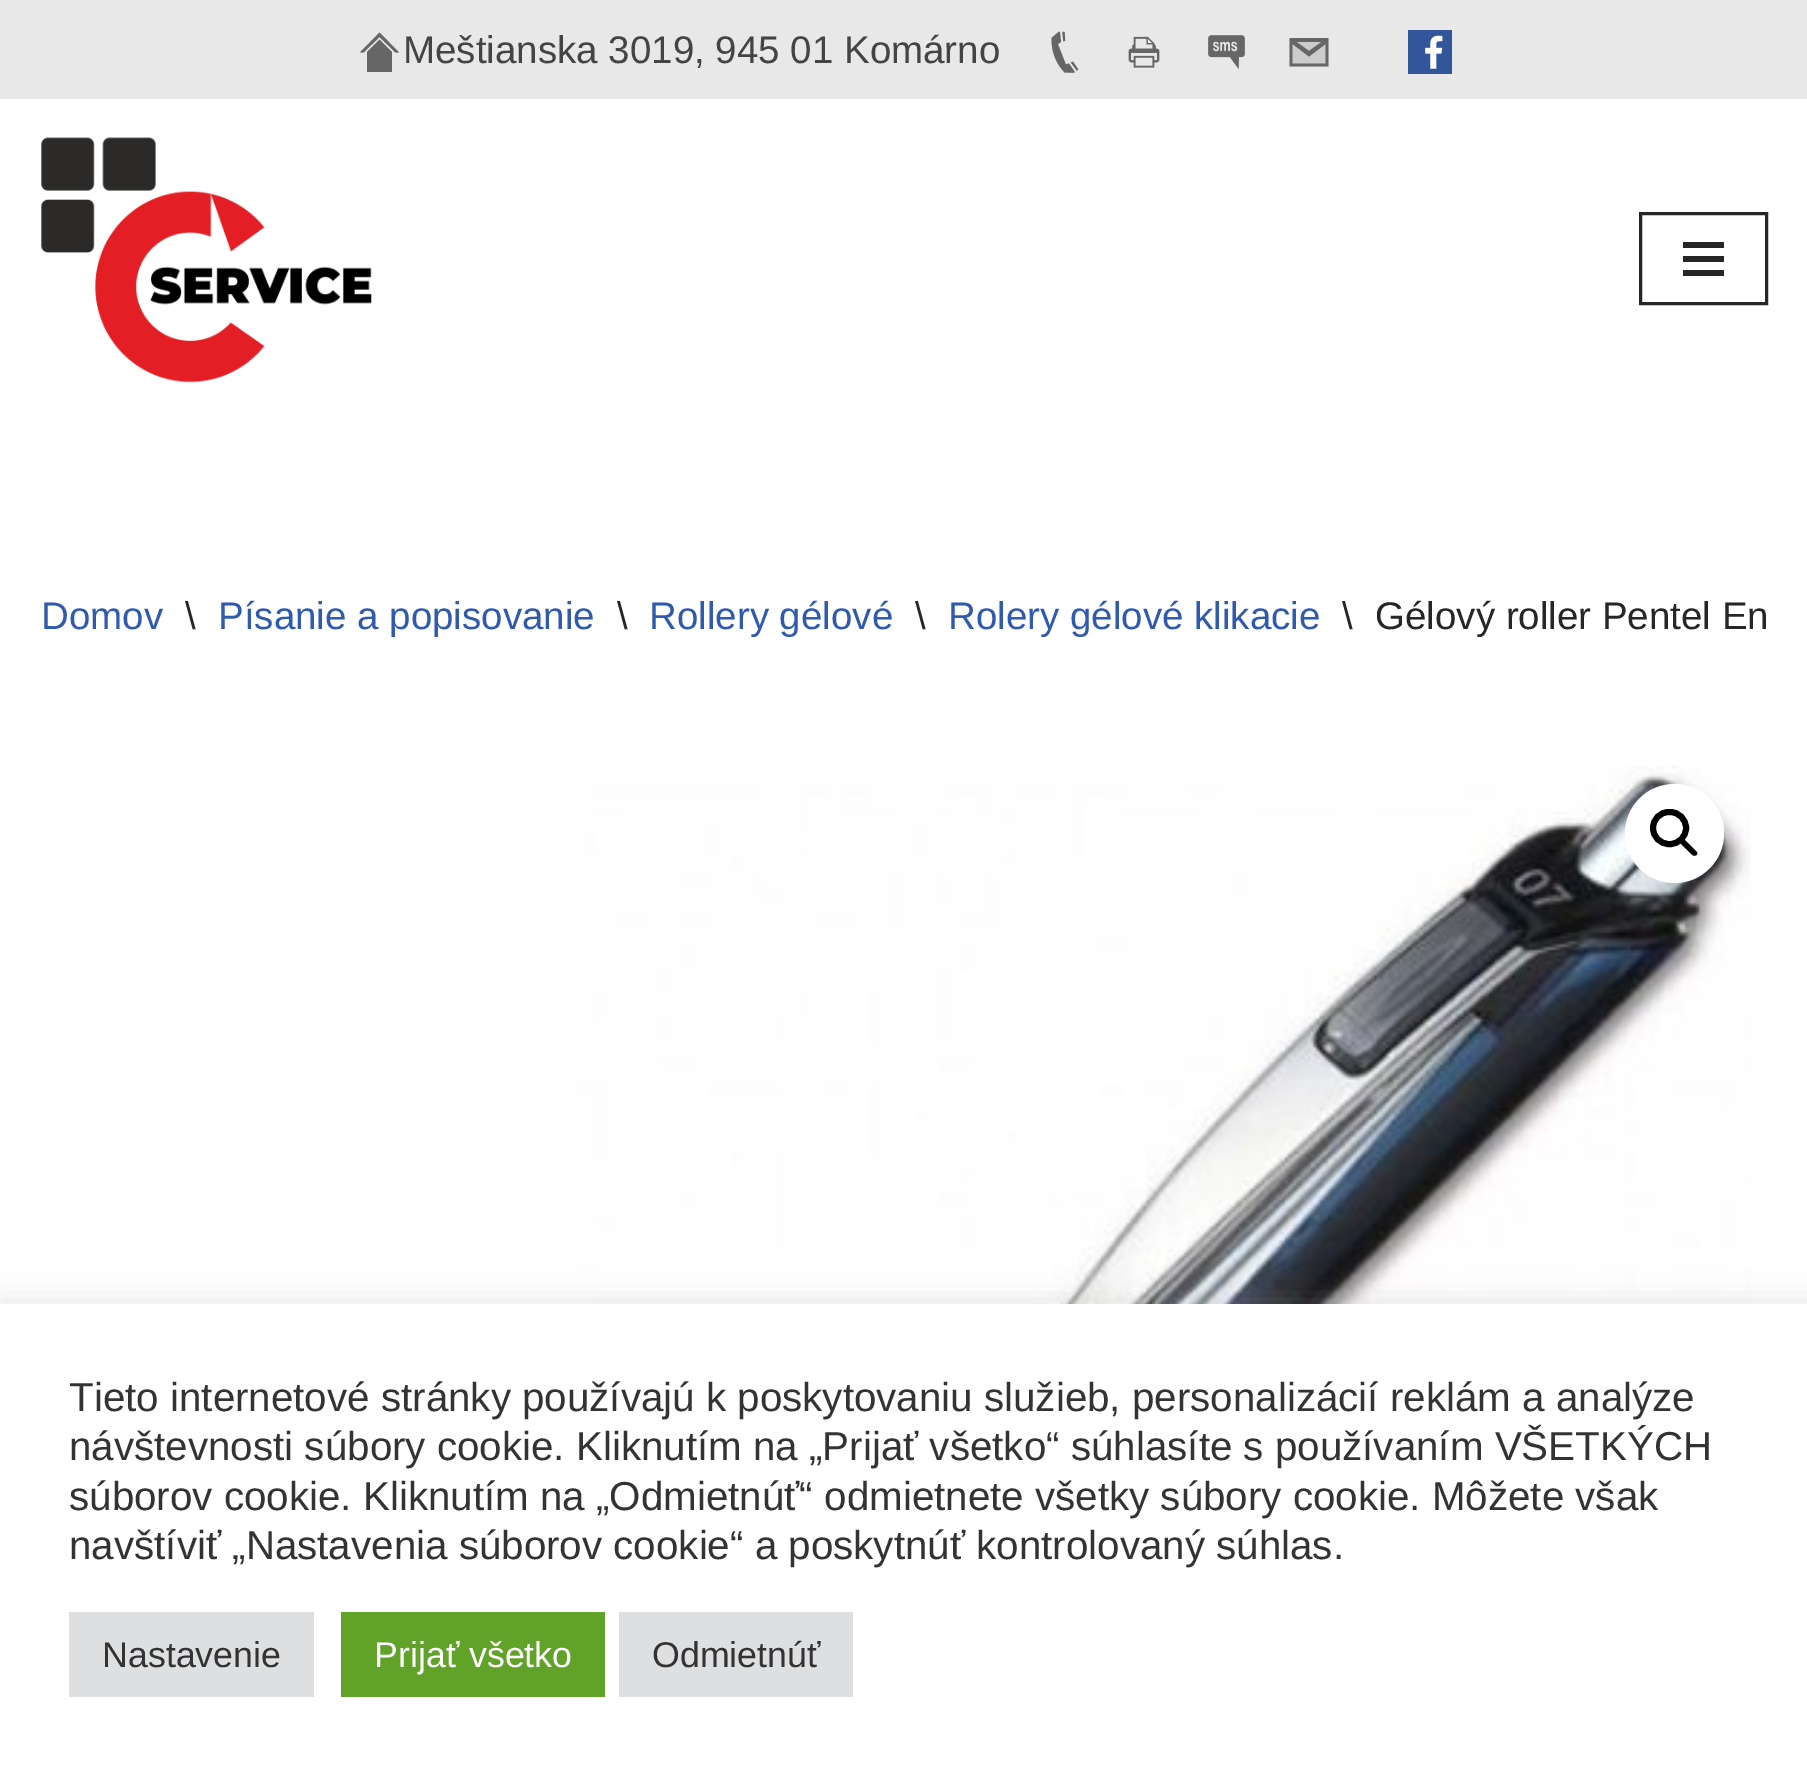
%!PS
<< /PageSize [1807 1778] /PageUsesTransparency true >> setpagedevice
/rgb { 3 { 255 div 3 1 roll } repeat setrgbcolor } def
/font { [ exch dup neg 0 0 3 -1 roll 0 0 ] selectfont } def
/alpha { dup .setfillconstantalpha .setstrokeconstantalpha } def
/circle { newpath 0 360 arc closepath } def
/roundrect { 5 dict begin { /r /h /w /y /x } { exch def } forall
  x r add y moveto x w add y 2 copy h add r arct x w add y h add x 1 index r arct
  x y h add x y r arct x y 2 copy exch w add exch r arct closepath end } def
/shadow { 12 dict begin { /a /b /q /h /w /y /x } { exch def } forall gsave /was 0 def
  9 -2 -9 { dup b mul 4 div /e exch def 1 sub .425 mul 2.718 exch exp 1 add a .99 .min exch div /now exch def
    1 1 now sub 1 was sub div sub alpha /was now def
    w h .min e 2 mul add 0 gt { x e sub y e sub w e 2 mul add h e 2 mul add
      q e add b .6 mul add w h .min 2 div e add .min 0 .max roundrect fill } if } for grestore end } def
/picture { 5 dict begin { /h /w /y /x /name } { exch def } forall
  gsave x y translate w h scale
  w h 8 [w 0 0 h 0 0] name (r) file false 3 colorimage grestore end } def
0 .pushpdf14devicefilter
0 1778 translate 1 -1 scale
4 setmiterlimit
255 255 255 rgb
0 0 1807 1778 rectfill
232 232 232 rgb
0 0 1807 99 rectfill
102 102 102 rgb
399 52.5 moveto 395.5 52.5 lineto 379.5 37 lineto 363.5 52.5 lineto 360 52.5 lineto 379.5 32.5 lineto closepath 392 52 moveto 392 72 lineto 367 72 lineto 367 52 lineto 379.5 39.5 lineto closepath fill
204 204 204 rgb
1292 42 34 22 rectfill
102 102 102 rgb
1289.5 38 moveto 1289.5 66.5 lineto 1328.5 66.5 lineto 1328.5 38 lineto closepath 1321.5 42 moveto 1309 51 lineto 1296.5 42 lineto closepath 1325.5 63.5 moveto 1292.5 63.5 lineto 1292.5 44 lineto 1309 56.5 lineto 1325.5 44 lineto closepath fill
(img/1.rgb) 1051 31 28 42 picture
(img/2.rgb) 1128 36 32 32 picture
(img/3.rgb) 1208 35 37 34 picture
(img/4.rgb) 1408 30 44 44 picture
(img/5.rgb) 41 137 331 246 picture
39 38 38 rgb
3 setlinewidth
1640.5 213.5 126 90 rectstroke
[
  [1683 242 41 6 39 38 38]
  [1683 256 41 6 39 38 38]
  [1683 270 41 6 39 38 38]
] { aload pop rgb rectfill } forall
(img/6.rgb) 575 765 1176 539 picture
255 255 255 rgb
1674.5 833.5 49.5 circle fill
0 0 0 rgb
6 setlinewidth
1653 812 33 32 16 roundrect stroke
1680.5 839.5 moveto 1682 838.5 1683.5 838.5 1684.5 839.5 curveto 1696.5 851.5 lineto 1697.5 852.5 1697.5 854 1696.5 855 curveto 1695 856 1693.5 856 1692.5 855 curveto 1680.5 843.5 lineto 1679.5 842.5 1679.5 840.5 1680.5 839.5 curveto closepath fill
172 171 171 rgb
0 1301 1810 476 0 14 0.3 shadow
[
  [0 1304 1807 474 255 255 255]
  [69 1612 245 85 222 223 224]
  [341 1612 264 85 97 162 41]
  [619 1612 234 85 222 223 224]
] { aload pop rgb rectfill } forall
/LiberationSans-Regular 38.5 font
68 68 68 rgb
403 63 moveto (Meštianska 3019, 945 01 Komárno) show
47 90 174 rgb
41 629 moveto (Domov) show
39 38 38 rgb
185 629 moveto (\\) show
47 90 174 rgb
218 629 moveto (Písanie a popisovanie) show
39 38 38 rgb
617 629 moveto (\\) show
47 90 174 rgb
649 629 moveto (Rollery gélové) show
39 38 38 rgb
915 629 moveto (\\) show
47 90 174 rgb
948 629 moveto (Rolery gélové klikacie) show
39 38 38 rgb
1342 629 moveto (\\) show
1375 629 moveto (Gélový roller Pentel En) show
/LiberationSans-Regular 40.35 font
51 51 51 rgb
[
  [(Tieto internetové stránky používajú k poskytovaniu služieb, personalizácií reklám a analýze) 69 1411]
  [(návštevnosti súbory cookie. Kliknutím na „Prijať všetko“ súhlasíte s používaním VŠETKÝCH) 69 1460]
  [(súborov cookie. Kliknutím na „Odmietnúť“ odmietnete všetky súbory cookie. Môžete však) 69 1510]
  [(navštíviť „Nastavenia súborov cookie“ a poskytnúť kontrolovaný súhlas.) 69 1559]
] { aload pop moveto show } forall
/LiberationSans-Regular 35.75 font
102 1667 moveto (Nastavenie) show
255 255 255 rgb
374 1667 moveto (Prijať všetko) show
51 51 51 rgb
652 1667 moveto (Odmietnúť) show
.poppdf14devicefilter showpage
